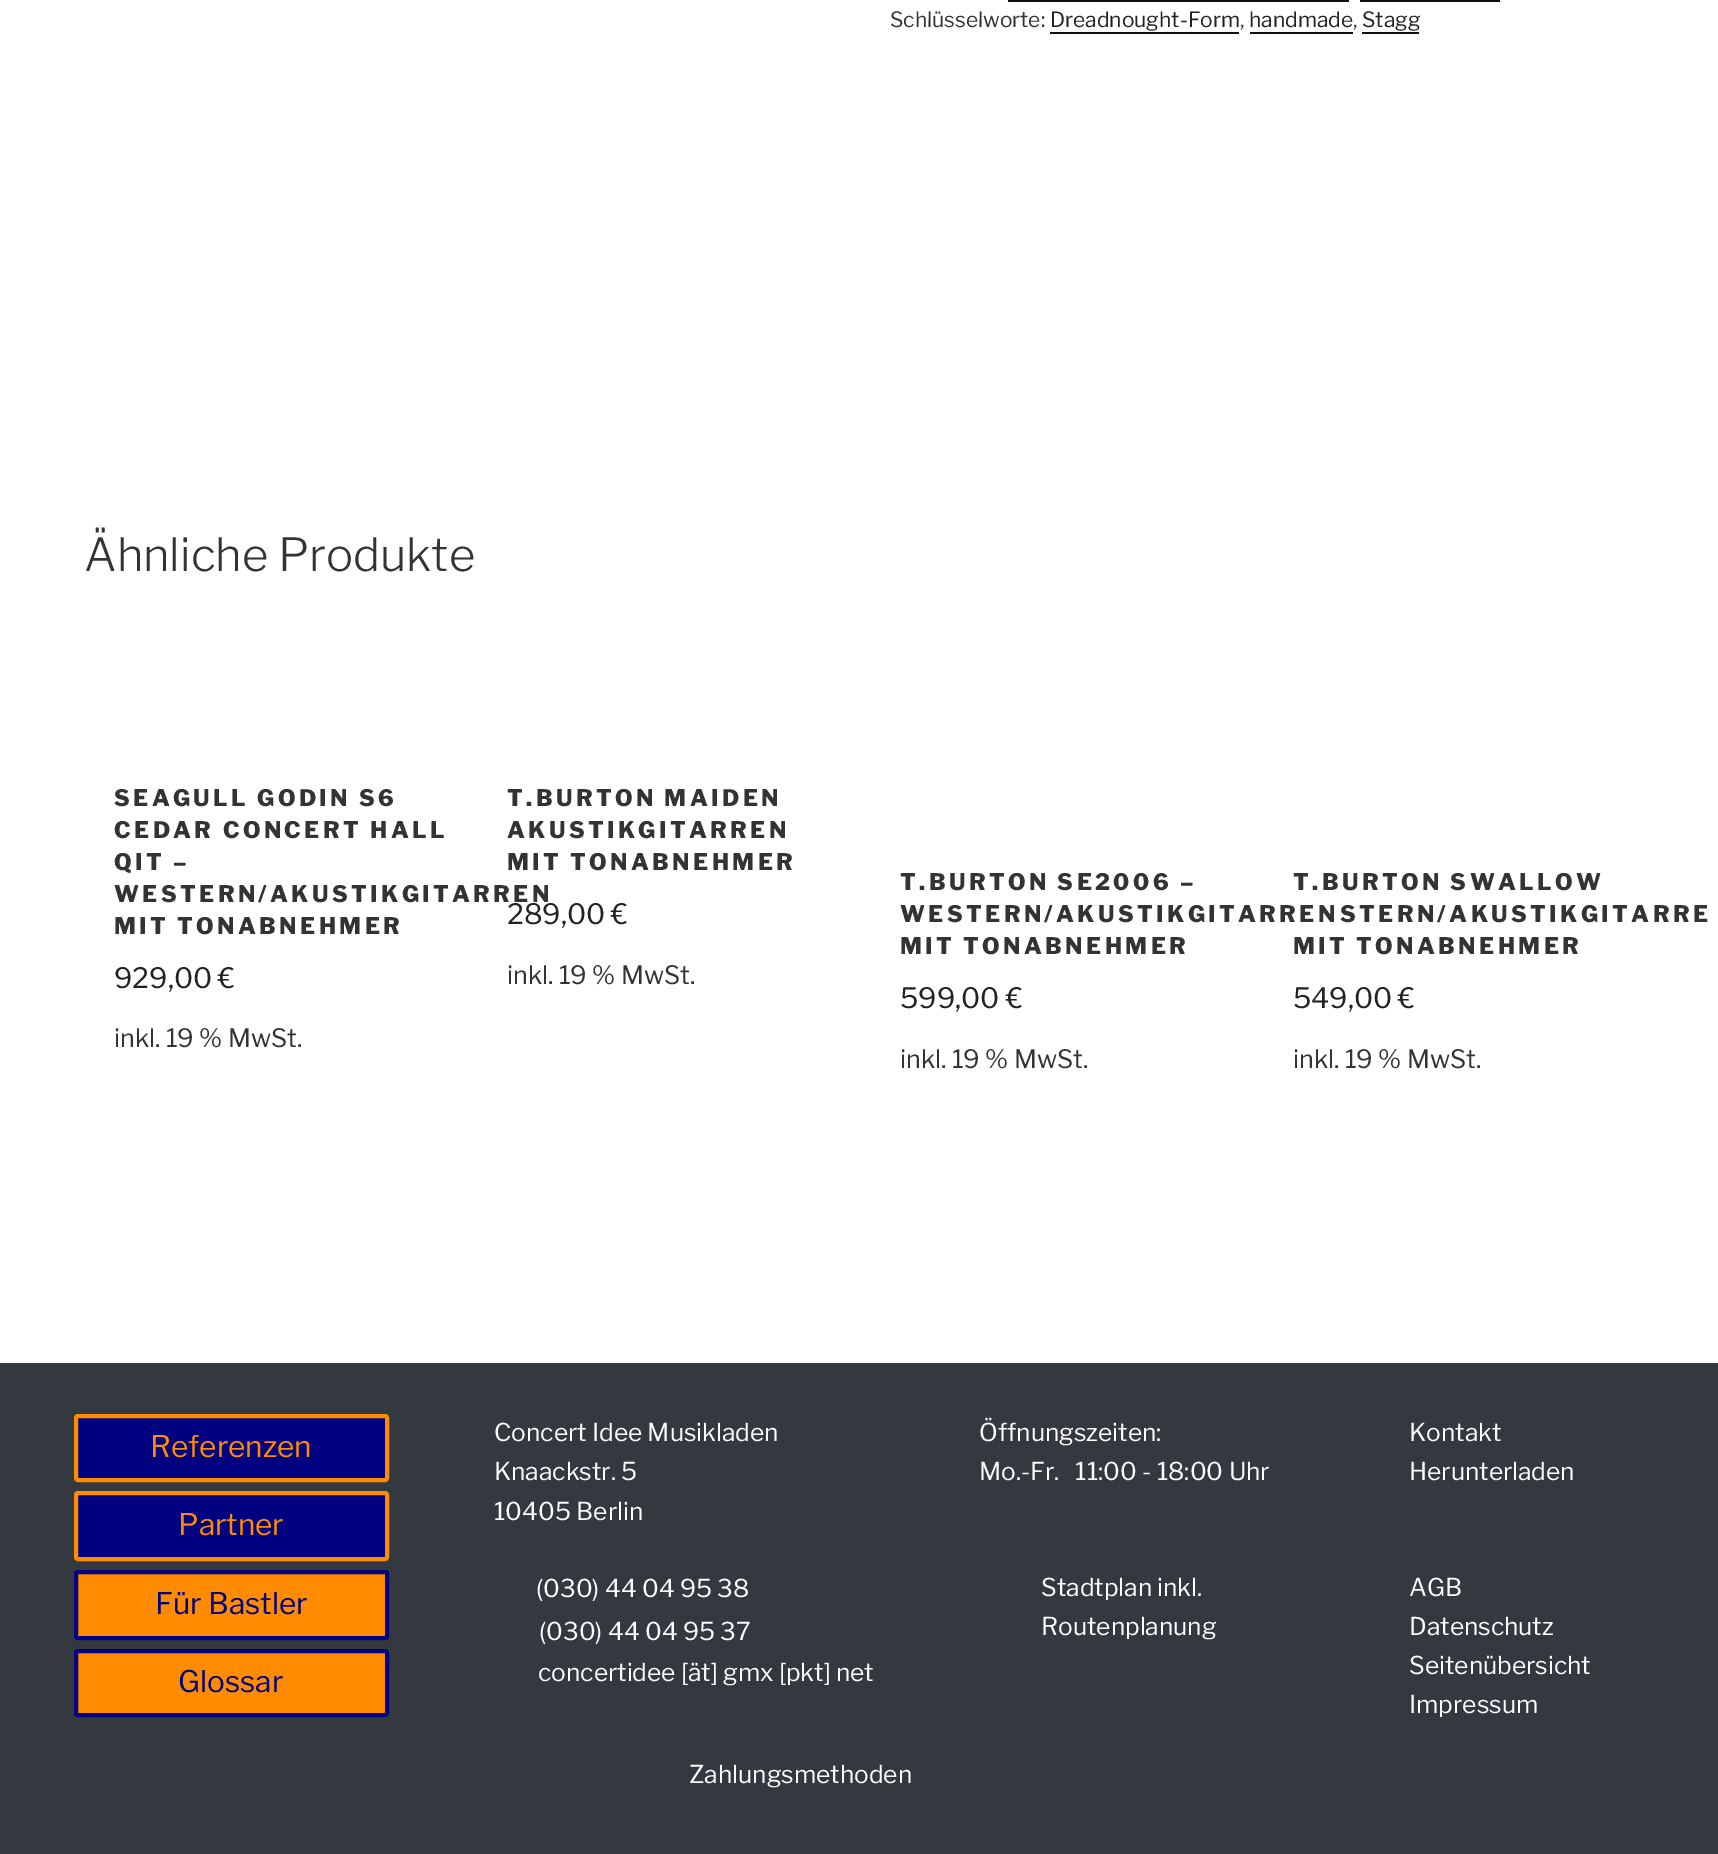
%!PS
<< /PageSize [1718 1854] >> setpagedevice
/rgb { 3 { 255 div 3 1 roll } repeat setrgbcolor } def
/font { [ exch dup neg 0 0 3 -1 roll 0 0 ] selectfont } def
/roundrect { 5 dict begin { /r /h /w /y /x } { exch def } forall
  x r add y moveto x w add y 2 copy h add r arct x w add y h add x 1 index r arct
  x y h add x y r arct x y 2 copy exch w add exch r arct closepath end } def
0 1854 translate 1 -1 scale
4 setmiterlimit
255 255 255 rgb
0 0 1718 1854 rectfill
[
  [1008 0 341 2 15 15 15]
  [1360 0 140 2 15 15 15]
  [1050 32 189 2 15 15 15]
  [1250 32 103 2 15 15 15]
  [1362 32 57 2 15 15 15]
  [0 1363 1718 491 52 57 63]
] { aload pop rgb rectfill } forall
0 0 128 rgb
76 1416 311 64 2 roundrect gsave fill grestore
255 140 0 rgb
4 setlinewidth
stroke
0 0 128 rgb
76 1493 311 66 2 roundrect gsave fill grestore
255 140 0 rgb
stroke
76 1572 311 66 2 roundrect gsave fill grestore
0 0 128 rgb
stroke
255 140 0 rgb
76 1651 311 64 2 roundrect gsave fill grestore
0 0 128 rgb
stroke
/LibreFranklin-Regular 21 font
51 51 51 rgb
890 27 moveto (Schlüsselworte:) show
34 34 34 rgb
1050 27 moveto (Dreadnought-Form) show
51 51 51 rgb
1240 27 moveto (,) show
34 34 34 rgb
1249 27 moveto (handmade) show
51 51 51 rgb
1353 27 moveto (,) show
34 34 34 rgb
1362 27 moveto (Stagg) show
/LibreFranklin-Light 45.5 font
51 51 51 rgb
84 571 moveto (Ähnliche Produkte) show
/LibreFranklin-ExtraBold 22.75 font
114 806 moveto 3.4 0 (SEAGULL GODIN S6) ashow
114 838 moveto 3.4 0 (CEDAR CONCERT HALL) ashow
114 870 moveto 3.4 0 (QIT –) ashow
114 902 moveto 3.4 0 (WESTERN/AKUSTIKGITARREN) ashow
114 934 moveto 3.4 0 (MIT TONABNEHMER) ashow
/LibreFranklin-Regular 28 font
34 34 34 rgb
114 988 moveto (929,00 €) show
/LibreFranklin-Regular 25.25 font
51 51 51 rgb
114 1047 moveto (inkl. 19 % MwSt.) show
/LibreFranklin-ExtraBold 22.75 font
507 806 moveto 3.4 0 (T.BURTON MAIDEN) ashow
507 838 moveto 3.4 0 (AKUSTIKGITARREN) ashow
507 870 moveto 3.4 0 (MIT TONABNEHMER) ashow
/LibreFranklin-Regular 28 font
34 34 34 rgb
507 924 moveto (289,00 €) show
/LibreFranklin-Regular 25.25 font
51 51 51 rgb
507 984 moveto (inkl. 19 % MwSt.) show
/LibreFranklin-ExtraBold 22.75 font
900 890 moveto 3.4 0 (T.BURTON SE2006 –) ashow
900 922 moveto 3.4 0 (WESTERN/AKUSTIKGITARREN) ashow
900 954 moveto 3.4 0 (MIT TONABNEHMER) ashow
/LibreFranklin-Regular 28 font
34 34 34 rgb
900 1008 moveto (599,00 €) show
/LibreFranklin-Regular 25.25 font
51 51 51 rgb
900 1068 moveto (inkl. 19 % MwSt.) show
/LibreFranklin-ExtraBold 22.75 font
1293 890 moveto 3.4 0 (T.BURTON SWALLOW) ashow
1340 922 moveto 3.4 0 (STERN/AKUSTIKGITARRE) ashow
1293 954 moveto 3.4 0 (MIT TONABNEHMER) ashow
/LibreFranklin-Regular 28 font
34 34 34 rgb
1293 1008 moveto (549,00 €) show
/LibreFranklin-Regular 25.25 font
51 51 51 rgb
1293 1068 moveto (inkl. 19 % MwSt.) show
/LibreFranklin-Regular 29.75 font
255 140 0 rgb
150 1457 moveto (Referenzen) show
178 1535 moveto (Partner) show
0 0 128 rgb
155 1614 moveto (Für Bastler) show
178 1692 moveto (Glossar) show
/LibreFranklin-Regular 24.5 font
255 255 255 rgb
[
  [(Concert Idee Musikladen) 494 1441]
  [(Knaackstr. 5) 494 1480]
  [(10405 Berlin) 494 1520]
  [(\(030\) 44 04 95 38) 536 1597]
  [(\(030\) 44 04 95 37) 539 1640]
  [(concertidee [ät] gmx [pkt] net) 538 1681]
  [(Öffnungszeiten:) 979 1441]
  [(Mo.-Fr.   11:00 - 18:00 Uhr) 979 1480]
  [(Stadtplan inkl.) 1041 1596]
  [(Routenplanung) 1041 1635]
  [(Kontakt) 1409 1441]
  [(Herunterladen) 1409 1480]
  [(AGB) 1409 1596]
  [(Datenschutz) 1409 1635]
  [(Seitenübersicht) 1409 1674]
  [(Impressum) 1409 1713]
  [(Zahlungsmethoden) 689 1783]
] { aload pop moveto show } forall
showpage
